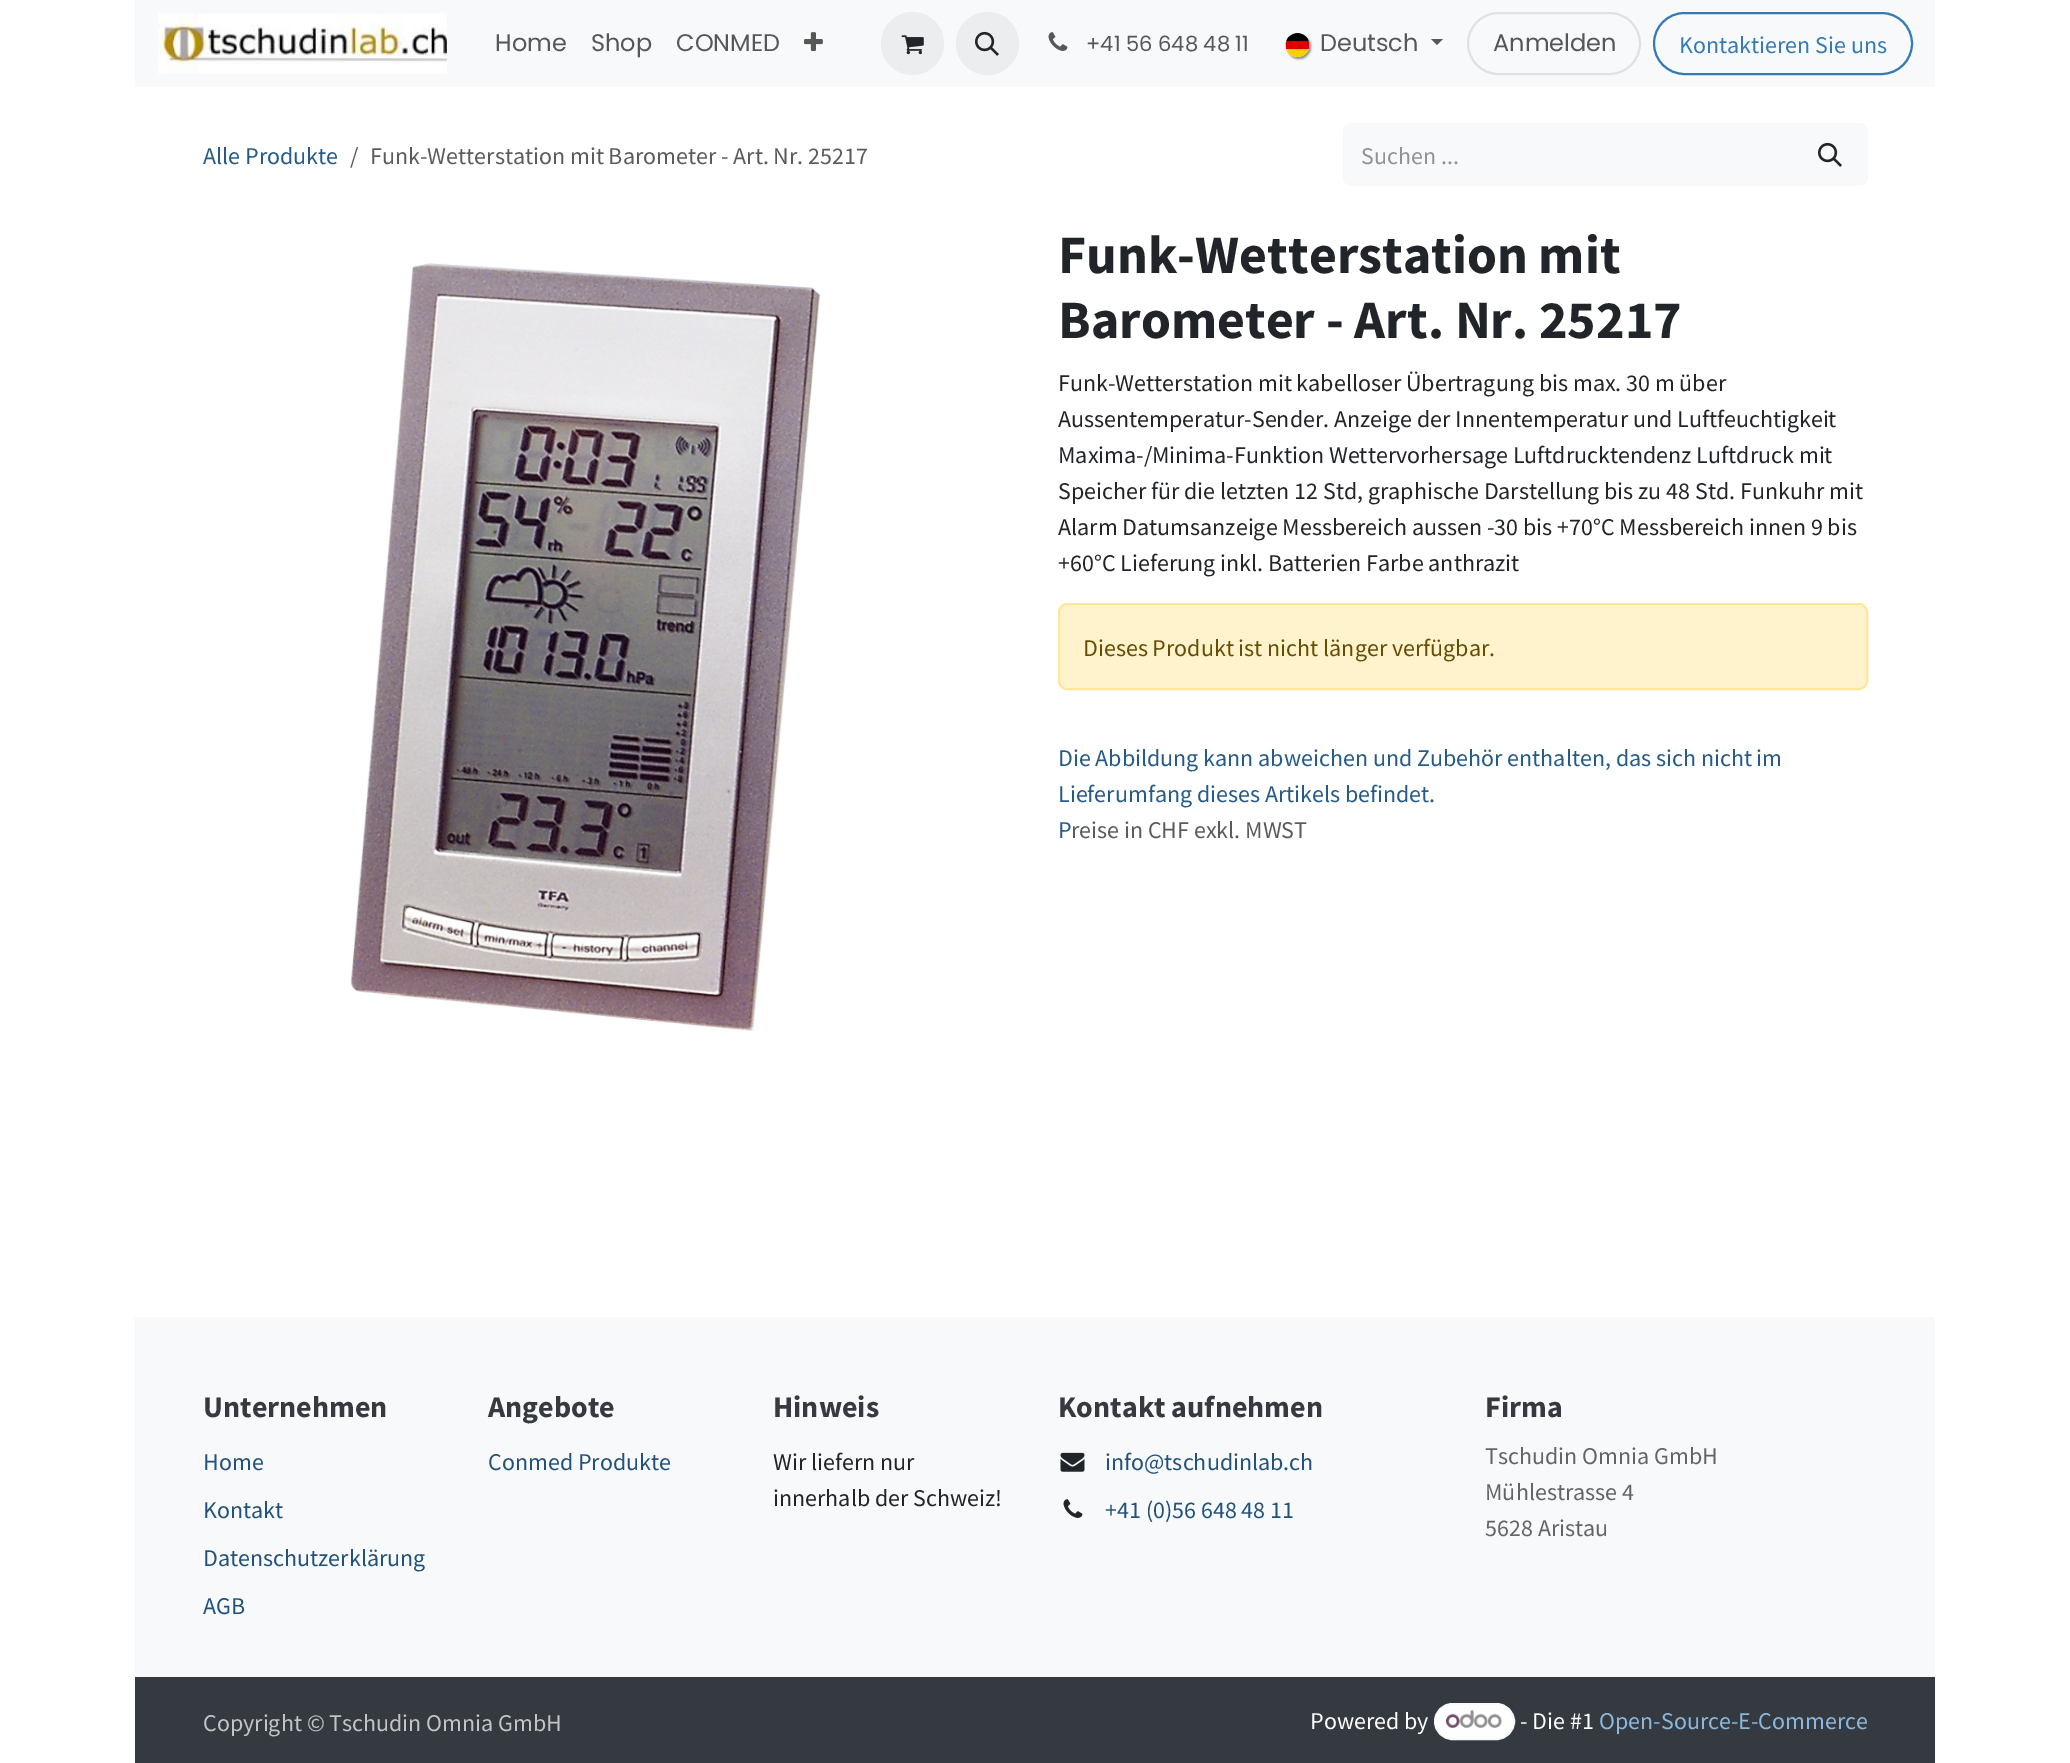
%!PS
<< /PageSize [2070 1763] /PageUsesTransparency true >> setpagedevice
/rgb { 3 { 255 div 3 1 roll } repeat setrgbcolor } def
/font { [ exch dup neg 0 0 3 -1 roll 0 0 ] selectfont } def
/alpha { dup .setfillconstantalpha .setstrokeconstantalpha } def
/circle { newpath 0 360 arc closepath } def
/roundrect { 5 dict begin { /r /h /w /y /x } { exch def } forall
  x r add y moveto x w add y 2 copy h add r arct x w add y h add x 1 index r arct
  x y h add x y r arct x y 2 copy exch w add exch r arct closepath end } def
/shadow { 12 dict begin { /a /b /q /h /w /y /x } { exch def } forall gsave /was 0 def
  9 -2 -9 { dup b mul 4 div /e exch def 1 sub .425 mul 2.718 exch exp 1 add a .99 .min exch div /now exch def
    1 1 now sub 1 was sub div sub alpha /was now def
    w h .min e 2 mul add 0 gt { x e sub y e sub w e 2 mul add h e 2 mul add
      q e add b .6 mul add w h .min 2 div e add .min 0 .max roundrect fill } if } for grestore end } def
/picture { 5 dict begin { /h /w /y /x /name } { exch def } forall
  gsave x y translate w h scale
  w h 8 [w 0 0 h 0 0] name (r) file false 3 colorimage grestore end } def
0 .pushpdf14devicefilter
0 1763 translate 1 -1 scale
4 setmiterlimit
255 255 255 rgb
0 0 2070 1763 rectfill
248 249 250 rgb
135 0 1800 87 rectfill
(img/1.rgb) 158 13 289 61 picture
(img/2.rgb) 804 32 19 19 picture
236 237 238 rgb
912.5 43.5 31.5 circle fill
(img/3.rgb) 901 35 23 20 picture
987.5 43.5 31.5 circle fill
(img/4.rgb) 975 31 24 25 picture
(img/5.rgb) 1048 32 20 19 picture
0 0 0 rgb
1287 35 24 24 12 1 0.43 shadow
(img/6.rgb) 1285 33 25 24 picture
87 87 88 rgb
1431 39 moveto 1443 39 lineto 1437 45 lineto closepath fill
224 225 226 rgb
2 setlinewidth
1468 13 172 61 30.5 roundrect stroke
51 122 183 rgb
1654 13 258 61 30.5 roundrect stroke
248 249 250 rgb
1352 123 moveto 1794 123 lineto 1794 186 lineto 1352 186 lineto 1347 186 1343 182 1343 177 curveto 1343 132 lineto 1343 127 1347 123 1352 123 curveto closepath fill
1793 123 moveto 1859 123 lineto 1864 123 1868 127 1868 132 curveto 1868 177 lineto 1868 182 1864 186 1859 186 curveto 1793 186 lineto closepath fill
(img/7.rgb) 1818 142 24 25 picture
(img/8.rgb) 350 263 471 768 picture
255 243 205 rgb
1059 604 808 85 8 roundrect gsave fill grestore
255 230 156 rgb
stroke
248 249 250 rgb
135 1317 1800 360 rectfill
(img/9.rgb) 1060 1452 25 20 picture
(img/10.rgb) 1063 1499 20 19 picture
52 58 64 rgb
135 1677 1800 86 rectfill
254 254 255 rgb
1435 1704 79 35 17.5 roundrect gsave fill grestore
248 249 250 rgb
stroke
(img/11.rgb) 1446 1710 56 18 picture
/Poppins-Regular 24 font
87 87 88 rgb
[
  [(Home) 495 51]
  [(Shop) 591 51]
  [(CONMED) 676 51]
] { aload pop moveto show } forall
/Poppins-Regular 21 font
1086 51 moveto (+41 56 648 48 11) show
/Poppins-Regular 24 font
1320 51 moveto (Deutsch) show
1493 51 moveto (Anmelden) show
/SourceSansPro-Regular 24 font
51 122 183 rgb
1679 53 moveto (Kontaktieren Sie uns) show
38 90 135 rgb
203 164 moveto (Alle Produkte) show
89 92 95 rgb
350 164 moveto (/) show
370 164 moveto (Funk-Wetterstation mit Barometer - Art. Nr. 25217) show
144 146 148 rgb
1361 164 moveto (Suchen ...) show
/SourceSansPro-Bold 54 font
33 37 41 rgb
1058 273 moveto (Funk-Wetterstation mit) show
1058 338 moveto (Barometer - Art. Nr. 25217) show
/SourceSansPro-Regular 24 font
[
  [(Funk-Wetterstation mit kabelloser Übertragung bis max. 30 m über) 1058 391]
  [(Aussentemperatur-Sender. Anzeige der Innentemperatur und Luftfeuchtigkeit) 1058 427]
  [(Maxima-/Minima-Funktion Wettervorhersage Luftdrucktendenz Luftdruck mit) 1058 463]
  [(Speicher für die letzten 12 Std, graphische Darstellung bis zu 48 Std. Funkuhr mit) 1058 499]
  [(Alarm Datumsanzeige Messbereich aussen -30 bis +70°C Messbereich innen 9 bis) 1058 535]
  [(+60°C Lieferung inkl. Batterien Farbe anthrazit) 1058 571]
] { aload pop moveto show } forall
102 77 3 rgb
1083 656 moveto (Dieses Produkt ist nicht länger verfügbar.) show
38 90 135 rgb
[
  [(Die Abbildung kann abweichen und Zubehör enthalten, das sich nicht im) 1058 766]
  [(Lieferumfang dieses Artikels befindet.) 1058 802]
  [(P) 1058 838]
] { aload pop moveto show } forall
89 92 95 rgb
1071 838 moveto (reise in CHF exkl. MWST) show
/SourceSansPro-Bold 30 font
52 58 64 rgb
203 1417 moveto (Unternehmen) show
/SourceSansPro-Regular 24 font
34 82 123 rgb
[
  [(Home) 203 1470]
  [(Kontakt) 203 1518]
  [(Datenschutzerklärung) 203 1566]
  [(AGB) 203 1614]
] { aload pop moveto show } forall
/SourceSansPro-Bold 30 font
52 58 64 rgb
488 1417 moveto (Angebote) show
/SourceSansPro-Regular 24 font
34 82 123 rgb
488 1470 moveto (Conmed Produkte) show
/SourceSansPro-Bold 30 font
52 58 64 rgb
773 1417 moveto (Hinweis) show
/SourceSansPro-Regular 24 font
33 37 41 rgb
773 1470 moveto (Wir liefern nur) show
773 1506 moveto (innerhalb der Schweiz!) show
/SourceSansPro-Bold 30 font
52 58 64 rgb
1058 1417 moveto (Kontakt aufnehmen) show
/SourceSansPro-Regular 24 font
34 82 123 rgb
1105 1470 moveto (info@tschudinlab.ch) show
1105 1518 moveto (+41 \(0\)56 648 48 11) show
/SourceSansPro-Bold 30 font
52 58 64 rgb
1485 1417 moveto (Firma) show
/SourceSansPro-Regular 24 font
98 101 104 rgb
[
  [(Tschudin Omnia GmbH) 1485 1464]
  [(Mühlestrasse 4) 1485 1500]
  [(5628 Aristau) 1485 1536]
] { aload pop moveto show } forall
194 196 198 rgb
203 1731 moveto (Copyright © Tschudin Omnia GmbH) show
255 255 255 rgb
1310 1729 moveto (Powered by) show
1520 1729 moveto (- Die #1) show
139 184 223 rgb
1599 1729 moveto (Open-Source-E-Commerce) show
.poppdf14devicefilter showpage
